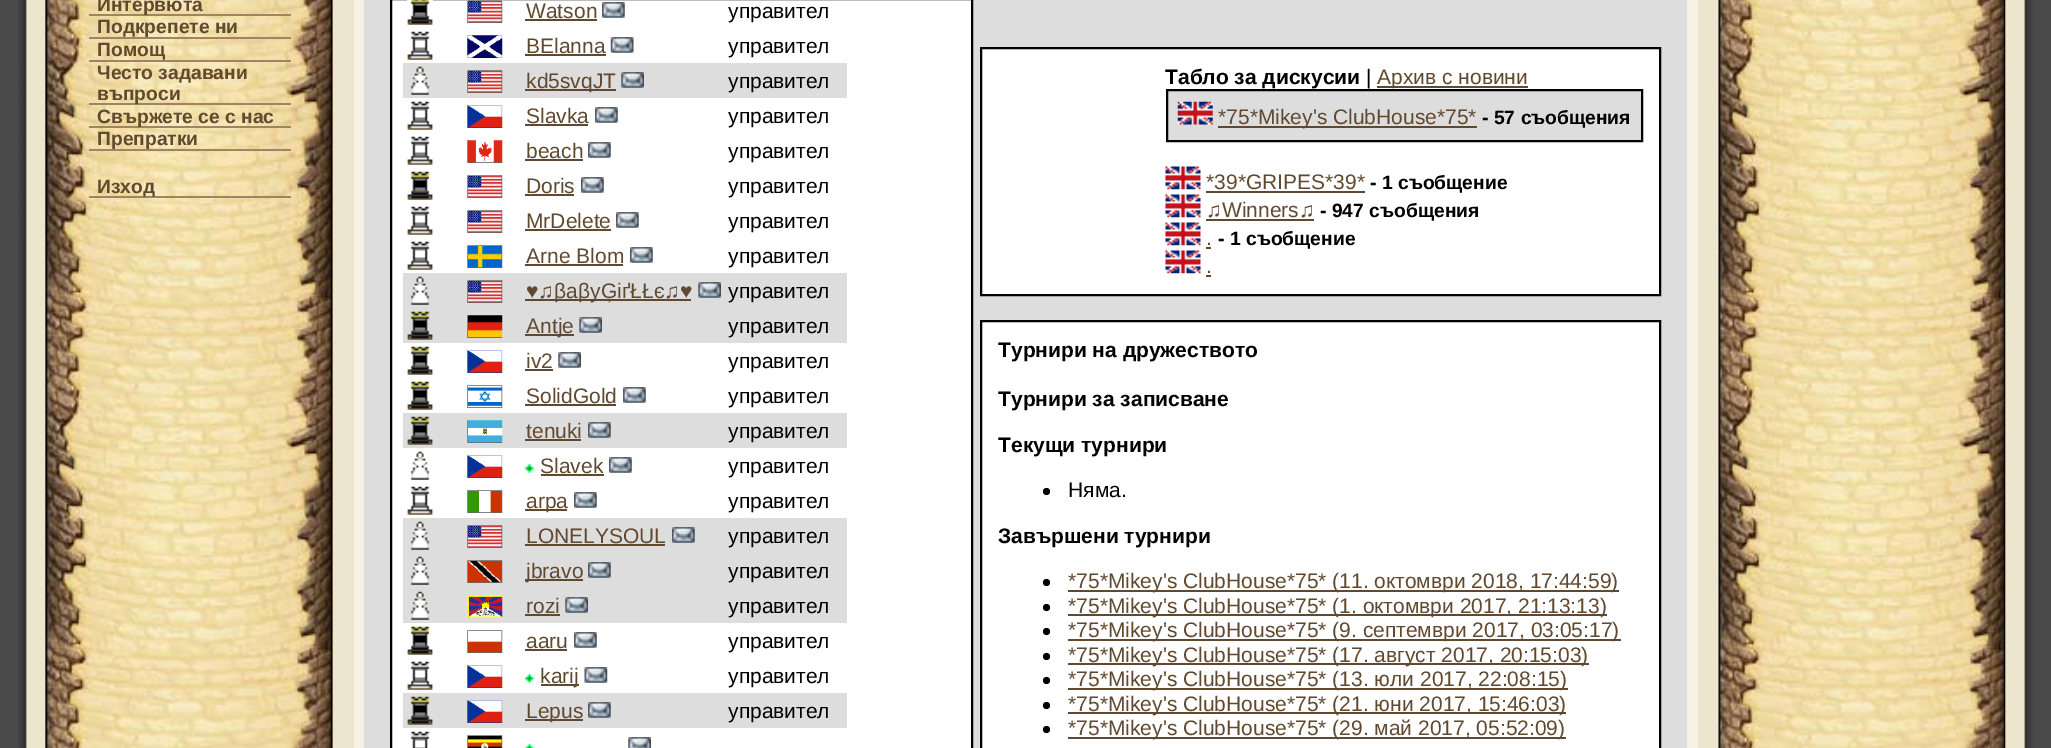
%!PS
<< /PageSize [2051 748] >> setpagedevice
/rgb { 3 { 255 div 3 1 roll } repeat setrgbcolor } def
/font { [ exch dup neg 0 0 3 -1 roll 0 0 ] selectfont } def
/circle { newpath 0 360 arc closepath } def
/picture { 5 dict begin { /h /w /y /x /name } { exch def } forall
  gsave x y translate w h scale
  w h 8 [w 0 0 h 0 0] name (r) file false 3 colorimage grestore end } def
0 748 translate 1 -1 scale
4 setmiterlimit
74 74 74 rgb
0 0 2051 748 rectfill
(img/1.rgb) 18 0 28 748 picture
221 177 125 rgb
332 0 1 748 rectfill
(img/2.rgb) 45 0 288 748 picture
[
  [89 14 202 2 160 131 100]
  [89 37 202 2 160 131 100]
  [89 60 202 2 160 131 100]
  [89 103 202 2 160 131 100]
  [89 126 202 2 160 131 100]
  [89 149 202 2 160 131 100]
  [89 196 202 2 160 131 100]
  [333 0 1386 748 237 230 206]
  [354 0 1344 748 245 241 228]
  [364 0 1323 748 221 221 221]
] { aload pop rgb rectfill } forall
255 255 255 rgb
391 -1 moveto 972 -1 lineto 972 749 lineto 391 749 lineto closepath gsave fill grestore
0 0 0 rgb
2 setlinewidth
stroke
(img/3.rgb) 407 0 26 25 picture
(img/4.rgb) 467 0 36 23 picture
97 73 48 rgb
525 19 72 2 rectfill
(img/5.rgb) 602 2 23 16 picture
(img/6.rgb) 407 31 26 29 picture
(img/7.rgb) 467 35 36 23 picture
525 54 81 2 rectfill
(img/8.rgb) 610 37 24 16 picture
221 221 221 rgb
403 63 444 35 rectfill
(img/9.rgb) 410 66 20 29 picture
(img/10.rgb) 467 70 36 23 picture
97 73 48 rgb
525 89 91 2 rectfill
(img/11.rgb) 621 72 23 16 picture
(img/6.rgb) 407 101 26 29 picture
(img/12.rgb) 467 105 36 23 picture
525 124 63 2 rectfill
(img/5.rgb) 595 107 23 16 picture
(img/6.rgb) 407 136 26 29 picture
(img/13.rgb) 467 140 36 23 picture
525 159 58 2 rectfill
(img/5.rgb) 588 142 23 16 picture
(img/14.rgb) 407 171 26 29 picture
(img/4.rgb) 467 175 36 23 picture
525 194 49 2 rectfill
(img/15.rgb) 581 177 23 16 picture
(img/6.rgb) 407 206 26 29 picture
(img/4.rgb) 467 210 36 23 picture
525 229 86 2 rectfill
(img/5.rgb) 616 212 23 16 picture
(img/6.rgb) 407 241 26 29 picture
(img/16.rgb) 467 245 36 23 picture
525 264 98 2 rectfill
(img/15.rgb) 630 247 23 16 picture
221 221 221 rgb
403 273 444 70 rectfill
(img/9.rgb) 410 276 20 29 picture
(img/10.rgb) 467 280 36 23 picture
97 73 48 rgb
525 299 166 2 rectfill
(img/11.rgb) 698 282 23 16 picture
(img/17.rgb) 407 311 26 29 picture
(img/18.rgb) 467 315 36 23 picture
525 334 49 2 rectfill
(img/11.rgb) 579 317 23 16 picture
(img/14.rgb) 407 346 26 29 picture
(img/12.rgb) 467 350 36 23 picture
525 369 28 2 rectfill
(img/19.rgb) 558 352 23 16 picture
(img/14.rgb) 407 381 26 29 picture
(img/20.rgb) 467 385 36 23 picture
525 404 91 2 rectfill
(img/15.rgb) 623 387 23 16 picture
221 221 221 rgb
403 413 444 35 rectfill
(img/17.rgb) 407 416 26 29 picture
(img/21.rgb) 467 420 36 23 picture
97 73 48 rgb
525 439 56 2 rectfill
(img/22.rgb) 588 422 23 16 picture
(img/23.rgb) 410 451 20 29 picture
(img/12.rgb) 467 455 36 23 picture
(img/24.rgb) 525 464 9 9 picture
541 474 63 2 rectfill
(img/5.rgb) 609 457 23 16 picture
(img/6.rgb) 407 486 26 29 picture
(img/25.rgb) 467 490 36 23 picture
525 509 42 2 rectfill
(img/15.rgb) 574 492 23 16 picture
221 221 221 rgb
403 518 444 105 rectfill
(img/9.rgb) 410 521 20 29 picture
(img/10.rgb) 467 525 36 23 picture
97 73 48 rgb
525 544 140 2 rectfill
(img/22.rgb) 672 527 23 16 picture
(img/9.rgb) 410 556 20 29 picture
(img/26.rgb) 467 560 36 23 picture
525 579 58 2 rectfill
(img/22.rgb) 588 562 23 16 picture
(img/9.rgb) 410 591 20 29 picture
(img/27.rgb) 467 595 36 23 picture
525 614 35 2 rectfill
(img/28.rgb) 565 597 23 16 picture
(img/29.rgb) 407 626 26 29 picture
(img/30.rgb) 467 630 36 23 picture
525 649 42 2 rectfill
(img/15.rgb) 574 632 23 16 picture
(img/6.rgb) 407 661 26 29 picture
(img/12.rgb) 467 665 36 23 picture
(img/24.rgb) 525 674 9 9 picture
541 684 38 2 rectfill
(img/31.rgb) 584 667 24 16 picture
221 221 221 rgb
403 693 444 35 rectfill
(img/17.rgb) 407 696 26 29 picture
(img/32.rgb) 467 700 36 23 picture
97 73 48 rgb
525 719 58 2 rectfill
(img/22.rgb) 588 702 23 16 picture
(img/33.rgb) 410 731 20 17 picture
(img/34.rgb) 467 735 36 13 picture
(img/35.rgb) 525 744 9 4 picture
(img/36.rgb) 628 737 23 11 picture
255 255 255 rgb
981 48 moveto 1660 48 lineto 1660 295 lineto 981 295 lineto closepath gsave fill grestore
0 0 0 rgb
stroke
97 73 48 rgb
1377 86 151 2 rectfill
221 221 221 rgb
1167 90 moveto 1642 90 lineto 1642 141 lineto 1167 141 lineto closepath gsave fill grestore
0 0 0 rgb
stroke
(img/37.rgb) 1177 101 36 24 picture
97 73 48 rgb
1218 126 259 2 rectfill
(img/38.rgb) 1165 166 36 24 picture
1206 191 159 2 rectfill
(img/38.rgb) 1165 194 36 24 picture
1206 219 108 2 rectfill
(img/38.rgb) 1165 222 36 24 picture
1206 247 5 2 rectfill
(img/38.rgb) 1165 250 36 24 picture
1206 275 5 2 rectfill
255 255 255 rgb
981 321 moveto 1660 321 lineto 1660 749 lineto 981 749 lineto closepath gsave fill grestore
0 0 0 rgb
stroke
1046.5 491.5 3.5 circle fill
1046.5 582.5 3.5 circle fill
97 73 48 rgb
1068 590 551 2 rectfill
0 0 0 rgb
1046.5 607.5 3.5 circle fill
97 73 48 rgb
1068 614 539 2 rectfill
0 0 0 rgb
1046.5 631.5 3.5 circle fill
97 73 48 rgb
1068 639 553 2 rectfill
0 0 0 rgb
1046.5 656.5 3.5 circle fill
97 73 48 rgb
1068 663 521 2 rectfill
0 0 0 rgb
1046.5 680.5 3.5 circle fill
97 73 48 rgb
1068 688 500 2 rectfill
0 0 0 rgb
1046.5 705.5 3.5 circle fill
97 73 48 rgb
1068 712 498 2 rectfill
0 0 0 rgb
1046.5 729.5 3.5 circle fill
97 73 48 rgb
1068 737 498 2 rectfill
(img/39.rgb) 1718 0 288 748 picture
(img/40.rgb) 2005 0 28 748 picture
/LiberationSans-Bold 19.25 font
[
  [(Интервюта) 97 11]
  [(Подкрепете ни) 97 33]
  [(Помощ) 97 56]
  [(Често задавани) 97 79]
  [(въпроси) 97 100]
  [(Свържете се с нас) 97 123]
  [(Препратки) 97 145]
  [(Изход) 97 193]
] { aload pop moveto show } forall
/LiberationSans-Regular 21 font
526 18 moveto (Watson) show
0 0 0 rgb
728 18 moveto (управител) show
97 73 48 rgb
526 53 moveto (BElanna) show
0 0 0 rgb
728 53 moveto (управител) show
97 73 48 rgb
526 88 moveto (kd5svqJT) show
0 0 0 rgb
728 88 moveto (управител) show
97 73 48 rgb
526 123 moveto (Slavka) show
0 0 0 rgb
728 123 moveto (управител) show
97 73 48 rgb
526 158 moveto (beach) show
0 0 0 rgb
728 158 moveto (управител) show
97 73 48 rgb
526 193 moveto (Doris) show
0 0 0 rgb
728 193 moveto (управител) show
97 73 48 rgb
526 228 moveto (MrDelete) show
0 0 0 rgb
728 228 moveto (управител) show
97 73 48 rgb
526 263 moveto (Arne Blom) show
0 0 0 rgb
728 263 moveto (управител) show
97 73 48 rgb
526 298 moveto (♥♫βaβyĢіґŁŁє♫♥) show
0 0 0 rgb
728 298 moveto (управител) show
97 73 48 rgb
526 333 moveto (Antje) show
0 0 0 rgb
728 333 moveto (управител) show
97 73 48 rgb
526 368 moveto (iv2) show
0 0 0 rgb
728 368 moveto (управител) show
97 73 48 rgb
526 403 moveto (SolidGold) show
0 0 0 rgb
728 403 moveto (управител) show
97 73 48 rgb
526 438 moveto (tenuki) show
0 0 0 rgb
728 438 moveto (управител) show
97 73 48 rgb
540 473 moveto (Slavek) show
0 0 0 rgb
728 473 moveto (управител) show
97 73 48 rgb
526 508 moveto (arpa) show
0 0 0 rgb
728 508 moveto (управител) show
97 73 48 rgb
526 543 moveto (LONELYSOUL) show
0 0 0 rgb
728 543 moveto (управител) show
97 73 48 rgb
526 578 moveto (jbravo) show
0 0 0 rgb
728 578 moveto (управител) show
97 73 48 rgb
526 613 moveto (rozi) show
0 0 0 rgb
728 613 moveto (управител) show
97 73 48 rgb
526 648 moveto (aaru) show
0 0 0 rgb
728 648 moveto (управител) show
97 73 48 rgb
540 683 moveto (karij) show
0 0 0 rgb
728 683 moveto (управител) show
97 73 48 rgb
526 718 moveto (Lepus) show
0 0 0 rgb
728 718 moveto (управител) show
/LiberationSans-Bold 21 font
1165 84 moveto (Табло за дискусии) show
/LiberationSans-Regular 21 font
1366 84 moveto (|) show
97 73 48 rgb
1377 84 moveto (Архив с новини) show
1218 124 moveto (*75*Mikey's ClubHouse*75*) show
/LiberationSans-Bold 19.25 font
0 0 0 rgb
1482 124 moveto (- 57 съобщения) show
/LiberationSans-Regular 21 font
97 73 48 rgb
1206 189 moveto (*39*GRIPES*39*) show
/LiberationSans-Bold 19.25 font
0 0 0 rgb
1370 189 moveto (- 1 съобщение) show
/LiberationSans-Regular 21 font
97 73 48 rgb
1206 217 moveto (♫Winners♫) show
/LiberationSans-Bold 19.25 font
0 0 0 rgb
1320 217 moveto (- 947 съобщения) show
/LiberationSans-Regular 21 font
97 73 48 rgb
1206 245 moveto (.) show
/LiberationSans-Bold 19.25 font
0 0 0 rgb
1218 245 moveto (- 1 съобщение) show
/LiberationSans-Regular 21 font
97 73 48 rgb
1206 273 moveto (.) show
/LiberationSans-Bold 21 font
0 0 0 rgb
[
  [(Турнири на дружеството) 998 357]
  [(Турнири за записване) 998 406]
  [(Текущи турнири) 998 452]
] { aload pop moveto show } forall
/LiberationSans-Regular 21 font
1068 497 moveto (Няма.) show
/LiberationSans-Bold 21 font
998 543 moveto (Завършени турнири) show
/LiberationSans-Regular 21 font
97 73 48 rgb
[
  [(*75*Mikey's ClubHouse*75* \(11. октомври 2018, 17:44:59\)) 1068 588]
  [(*75*Mikey's ClubHouse*75* \(1. октомври 2017, 21:13:13\)) 1068 613]
  [(*75*Mikey's ClubHouse*75* \(9. септември 2017, 03:05:17\)) 1068 637]
  [(*75*Mikey's ClubHouse*75* \(17. август 2017, 20:15:03\)) 1068 662]
  [(*75*Mikey's ClubHouse*75* \(13. юли 2017, 22:08:15\)) 1068 686]
  [(*75*Mikey's ClubHouse*75* \(21. юни 2017, 15:46:03\)) 1068 711]
  [(*75*Mikey's ClubHouse*75* \(29. май 2017, 05:52:09\)) 1068 735]
] { aload pop moveto show } forall
showpage
